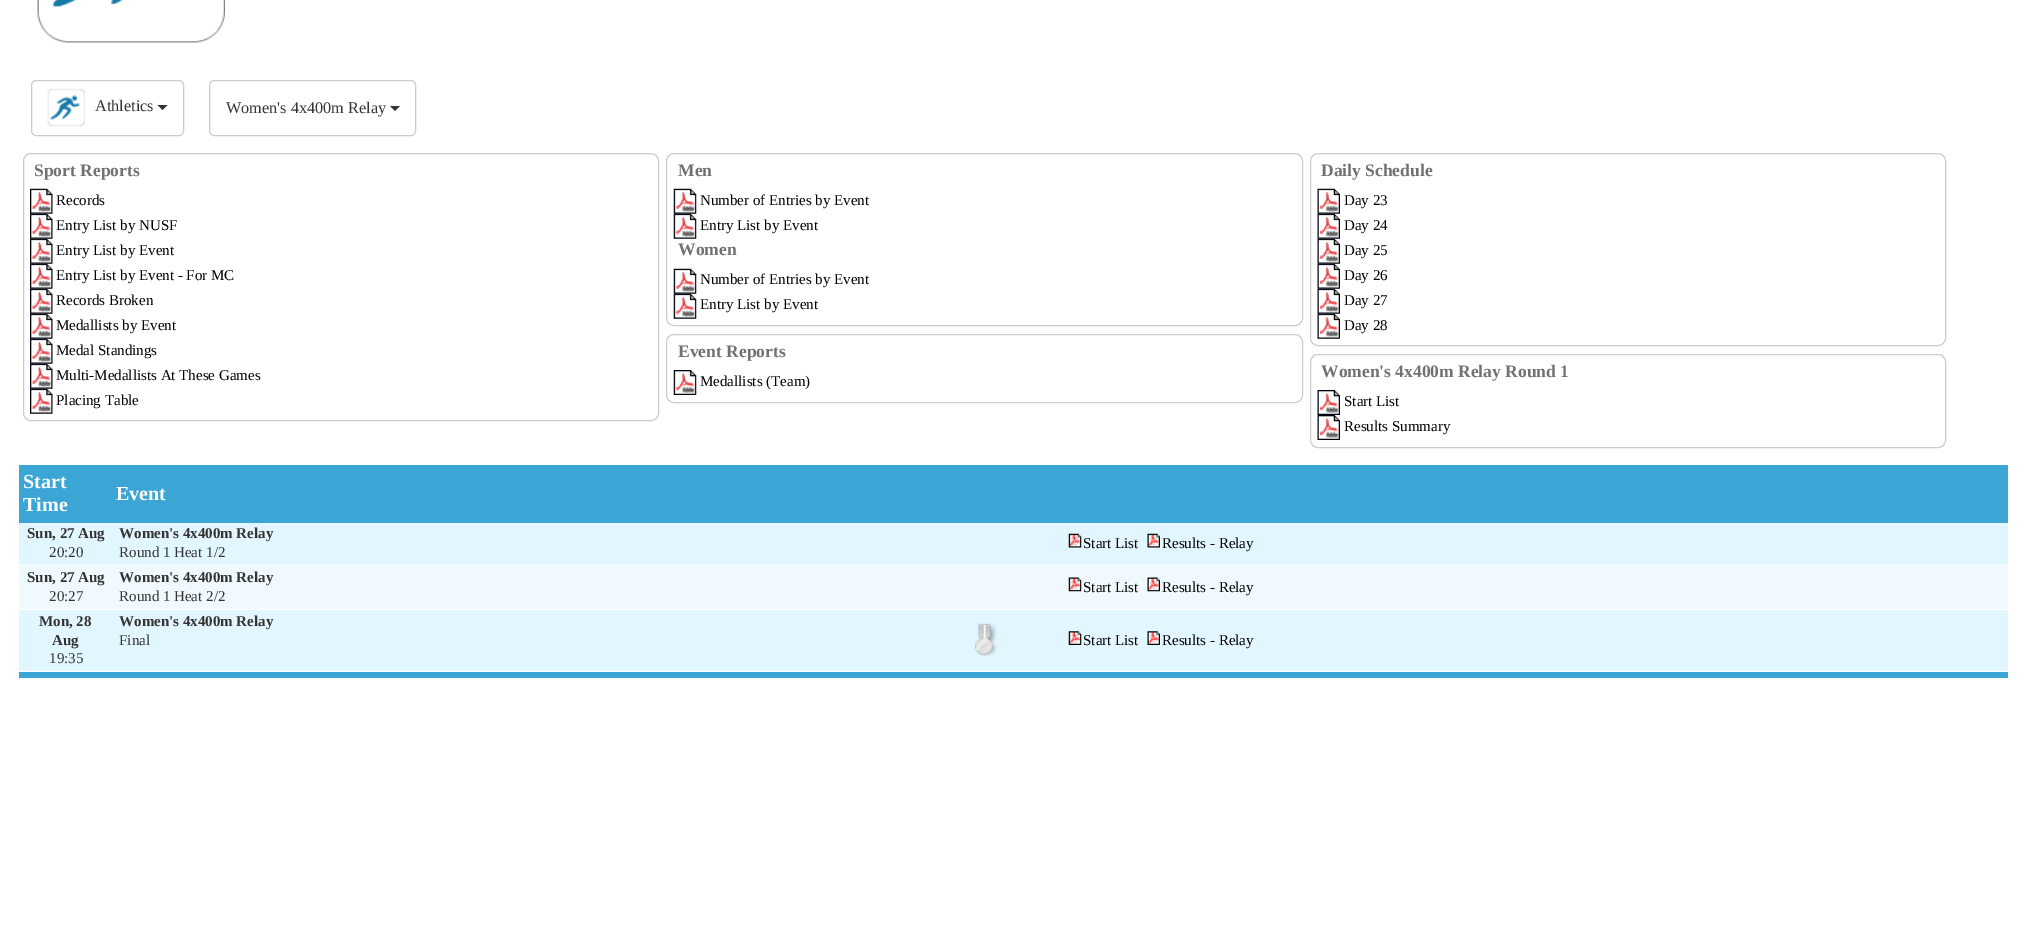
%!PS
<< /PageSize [2026 946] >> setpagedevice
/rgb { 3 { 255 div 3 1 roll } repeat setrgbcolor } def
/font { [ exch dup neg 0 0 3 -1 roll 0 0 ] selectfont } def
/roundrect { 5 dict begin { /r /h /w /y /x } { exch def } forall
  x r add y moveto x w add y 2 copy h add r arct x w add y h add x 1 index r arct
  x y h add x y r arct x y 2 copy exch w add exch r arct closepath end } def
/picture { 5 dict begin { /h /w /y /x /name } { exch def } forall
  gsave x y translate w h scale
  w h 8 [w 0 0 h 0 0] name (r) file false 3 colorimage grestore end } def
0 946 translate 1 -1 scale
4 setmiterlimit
255 255 255 rgb
0 0 2026 946 rectfill
(img/1.rgb) 37 0 188 43 picture
204 204 204 rgb
31.5 80.5 152 55 4.5 roundrect stroke
(img/2.rgb) 47 88 38 39 picture
51 51 51 rgb
157.5 105 moveto 167.5 105 lineto 162.5 110 lineto closepath fill
204 204 204 rgb
209.5 80.5 206 55 4.5 roundrect stroke
51 51 51 rgb
390 106 moveto 400 106 lineto 395 111 lineto closepath fill
204 204 204 rgb
23.5 153.5 635 267 7.5 roundrect stroke
(img/3.rgb) 30 188 23 26 picture
(img/4.rgb) 30 213 23 26 picture
(img/4.rgb) 30 238 23 26 picture
(img/4.rgb) 30 263 23 26 picture
(img/4.rgb) 30 288 23 26 picture
(img/4.rgb) 30 313 23 26 picture
(img/4.rgb) 30 338 23 26 picture
(img/4.rgb) 30 363 23 26 picture
(img/4.rgb) 30 388 23 26 picture
666.5 153.5 636 172 7.5 roundrect stroke
(img/5.rgb) 673 188 24 26 picture
(img/6.rgb) 673 213 24 26 picture
(img/5.rgb) 673 268 24 26 picture
(img/6.rgb) 673 293 24 26 picture
1310.5 153.5 635 192 7.5 roundrect stroke
(img/7.rgb) 1317 188 23 26 picture
(img/8.rgb) 1317 213 23 26 picture
(img/8.rgb) 1317 238 23 26 picture
(img/8.rgb) 1317 263 23 26 picture
(img/8.rgb) 1317 288 23 26 picture
(img/8.rgb) 1317 313 23 26 picture
666.5 334.5 636 68 7.5 roundrect stroke
(img/9.rgb) 673 370 24 25 picture
1310.5 354.5 635 93 7.5 roundrect stroke
(img/10.rgb) 1317 390 23 25 picture
(img/10.rgb) 1317 415 23 25 picture
59 165 213 rgb
19 465 1989 58 rectfill
226 246 255 rgb
19 523 1989 42 rectfill
(img/11.rgb) 1068 533 14 15 picture
(img/12.rgb) 1147 533 13 15 picture
240 249 254 rgb
19 566 1989 43 rectfill
(img/13.rgb) 1068 577 14 15 picture
(img/14.rgb) 1147 577 13 15 picture
226 246 255 rgb
19 610 1989 61 rectfill
(img/15.rgb) 975 623 22 33 picture
(img/16.rgb) 1068 631 14 14 picture
(img/17.rgb) 1147 631 13 14 picture
59 165 213 rgb
19 672 1989 6 rectfill
/LiberationSerif-Regular 16.25 font
51 51 51 rgb
95 111 moveto (Athletics) show
226 113 moveto (Women's 4x400m Relay) show
/LiberationSerif-Bold 17.5 font
113 113 113 rgb
34 176 moveto (Sport Reports) show
/LiberationSerif-Regular 15 font
0 0 0 rgb
[
  [(Records) 56 205]
  [(Entry List by NUSF) 56 230]
  [(Entry List by Event) 56 255]
  [(Entry List by Event - For MC) 56 280]
  [(Records Broken) 56 305]
  [(Medallists by Event) 56 330]
  [(Medal Standings) 56 355]
  [(Multi-Medallists At These Games) 56 380]
  [(Placing Table) 56 405]
] { aload pop moveto show } forall
/LiberationSerif-Bold 17.5 font
113 113 113 rgb
678 176 moveto (Men) show
/LiberationSerif-Regular 15 font
0 0 0 rgb
700 205 moveto (Number of Entries by Event) show
700 230 moveto (Entry List by Event) show
/LiberationSerif-Bold 17.5 font
113 113 113 rgb
678 255 moveto (Women) show
/LiberationSerif-Regular 15 font
0 0 0 rgb
700 284 moveto (Number of Entries by Event) show
700 309 moveto (Entry List by Event) show
/LiberationSerif-Bold 17.5 font
113 113 113 rgb
1321 176 moveto (Daily Schedule) show
/LiberationSerif-Regular 15 font
0 0 0 rgb
[
  [(Day 23) 1344 205]
  [(Day 24) 1344 230]
  [(Day 25) 1344 255]
  [(Day 26) 1344 280]
  [(Day 27) 1344 305]
  [(Day 28) 1344 330]
] { aload pop moveto show } forall
/LiberationSerif-Bold 17.5 font
113 113 113 rgb
678 357 moveto (Event Reports) show
/LiberationSerif-Regular 15 font
0 0 0 rgb
700 386 moveto (Medallists \(Team\)) show
/LiberationSerif-Bold 17.5 font
113 113 113 rgb
1321 377 moveto (Women's 4x400m Relay Round 1) show
/LiberationSerif-Regular 15 font
0 0 0 rgb
1344 406 moveto (Start List) show
1344 431 moveto (Results Summary) show
/LiberationSerif-Bold 20 font
255 255 255 rgb
[
  [(Start) 23 488]
  [(Time) 23 511]
  [(Event) 116 500]
] { aload pop moveto show } forall
/LiberationSerif-Bold 15 font
51 51 51 rgb
27 538 moveto (Sun, 27 Aug) show
/LiberationSerif-Regular 15 font
49 557 moveto (20:20) show
/LiberationSerif-Bold 15 font
119 538 moveto (Women's 4x400m Relay) show
/LiberationSerif-Regular 15 font
119 557 moveto (Round 1 Heat 1/2) show
0 0 0 rgb
1083 548 moveto (Start List) show
1162 548 moveto (Results - Relay) show
/LiberationSerif-Bold 15 font
51 51 51 rgb
27 582 moveto (Sun, 27 Aug) show
/LiberationSerif-Regular 15 font
49 601 moveto (20:27) show
/LiberationSerif-Bold 15 font
119 582 moveto (Women's 4x400m Relay) show
/LiberationSerif-Regular 15 font
119 601 moveto (Round 1 Heat 2/2) show
0 0 0 rgb
1083 592 moveto (Start List) show
1162 592 moveto (Results - Relay) show
/LiberationSerif-Bold 15 font
51 51 51 rgb
39 626 moveto (Mon, 28) show
52 645 moveto (Aug) show
/LiberationSerif-Regular 15 font
49 663 moveto (19:35) show
/LiberationSerif-Bold 15 font
119 626 moveto (Women's 4x400m Relay) show
/LiberationSerif-Regular 15 font
119 645 moveto (Final) show
0 0 0 rgb
1083 645 moveto (Start List) show
1162 645 moveto (Results - Relay) show
showpage
